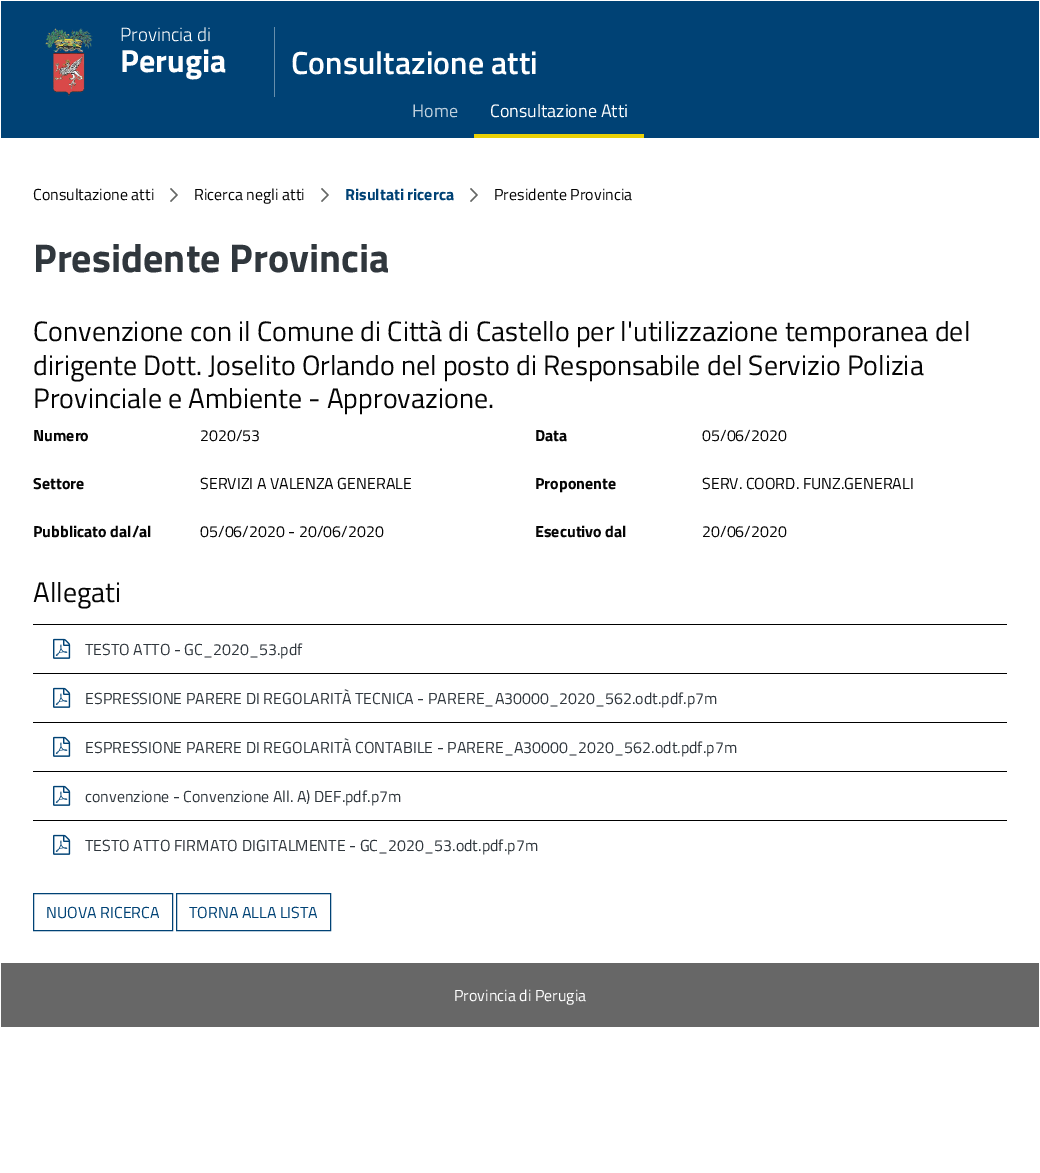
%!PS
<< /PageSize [1040 1173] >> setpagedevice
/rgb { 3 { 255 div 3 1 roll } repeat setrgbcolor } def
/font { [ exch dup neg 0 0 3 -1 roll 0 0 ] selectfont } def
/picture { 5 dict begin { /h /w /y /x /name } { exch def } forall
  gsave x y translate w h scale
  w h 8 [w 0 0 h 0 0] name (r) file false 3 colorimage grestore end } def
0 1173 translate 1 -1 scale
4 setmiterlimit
255 255 255 rgb
0 0 1040 1173 rectfill
0 66 117 rgb
1 1 1038 137 rectfill
(img/1.rgb) 45 28 48 68 picture
102 142 172 rgb
274 27 1 70 rectfill
234 208 5 rgb
474 134 170 4 rectfill
(img/2.rgb) 170 188 8 14 picture
(img/2.rgb) 321 188 8 14 picture
(img/2.rgb) 470 188 8 14 picture
0 0 0 rgb
33 624 974 1 rectfill
(img/3.rgb) 53 638 18 21 picture
33 673 974 1 rectfill
(img/3.rgb) 53 687 18 21 picture
33 722 974 1 rectfill
(img/3.rgb) 53 736 18 21 picture
33 771 974 1 rectfill
(img/3.rgb) 53 785 18 21 picture
33 820 974 1 rectfill
(img/3.rgb) 53 834 18 21 picture
0 66 117 rgb
33.5 893.5 139 37 rectstroke
176.5 893.5 154 37 rectstroke
103 103 103 rgb
1 963 1038 64 rectfill
/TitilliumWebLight-Light 19 font
255 255 255 rgb
120 41 moveto (Provincia di) show
/TitilliumWeb-Bold 32 font
120 72 moveto (Perugia) show
/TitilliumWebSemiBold-SemiBold 32 font
291 74 moveto (Consultazione atti) show
/TitilliumWeb-Regular 18 font
191 208 221 rgb
412 117 moveto (Home) show
255 255 255 rgb
490 117 moveto (Consultazione Atti) show
/TitilliumWeb-Regular 16 font
5 5 5 rgb
33 200 moveto (Consultazione atti) show
194 200 moveto (Ricerca negli atti) show
/TitilliumWeb-Bold 16 font
0 66 117 rgb
345 200 moveto (Risultati ricerca) show
/TitilliumWeb-Regular 16 font
5 5 5 rgb
494 200 moveto (Presidente Provincia) show
/TitilliumWeb-Bold 40 font
48 55 61 rgb
33 272 moveto (Presidente Provincia) show
/TitilliumWeb-Regular 28 font
5 5 5 rgb
[
  [(Convenzione con il Comune di Città di Castello per l'utilizzazione temporanea del) 33 341]
  [(dirigente Dott. Joselito Orlando nel posto di Responsabile del Servizio Polizia) 33 375]
  [(Provinciale e Ambiente - Approvazione.) 33 408]
] { aload pop moveto show } forall
/TitilliumWeb-Bold 16 font
33 441 moveto (Numero) show
/TitilliumWeb-Regular 16 font
200 441 moveto (2020/53) show
/TitilliumWeb-Bold 16 font
535 441 moveto (Data) show
/TitilliumWeb-Regular 16 font
702 441 moveto (05/06/2020) show
/TitilliumWeb-Bold 16 font
33 489 moveto (Settore) show
/TitilliumWeb-Regular 16 font
200 489 moveto (SERVIZI A VALENZA GENERALE) show
/TitilliumWeb-Bold 16 font
535 489 moveto (Proponente) show
/TitilliumWeb-Regular 16 font
702 489 moveto (SERV. COORD. FUNZ.GENERALI) show
/TitilliumWeb-Bold 16 font
33 537 moveto (Pubblicato dal/al) show
/TitilliumWeb-Regular 16 font
200 537 moveto (05/06/2020 - 20/06/2020) show
/TitilliumWeb-Bold 16 font
535 537 moveto (Esecutivo dal) show
/TitilliumWeb-Regular 16 font
702 537 moveto (20/06/2020) show
/TitilliumWeb-Regular 28 font
33 602 moveto (Allegati) show
/TitilliumWeb-Regular 16 font
48 55 61 rgb
[
  [(TESTO ATTO - GC_2020_53.pdf) 85 655]
  [(ESPRESSIONE PARERE DI REGOLARITÀ TECNICA - PARERE_A30000_2020_562.odt.pdf.p7m) 85 704]
  [(ESPRESSIONE PARERE DI REGOLARITÀ CONTABILE - PARERE_A30000_2020_562.odt.pdf.p7m) 85 753]
  [(convenzione - Convenzione All. A\) DEF.pdf.p7m) 85 802]
  [(TESTO ATTO FIRMATO DIGITALMENTE - GC_2020_53.odt.pdf.p7m) 85 851]
] { aload pop moveto show } forall
0 66 117 rgb
46 918 moveto (NUOVA RICERCA) show
189 918 moveto (TORNA ALLA LISTA) show
255 255 255 rgb
454 1001 moveto (Provincia di Perugia) show
showpage
